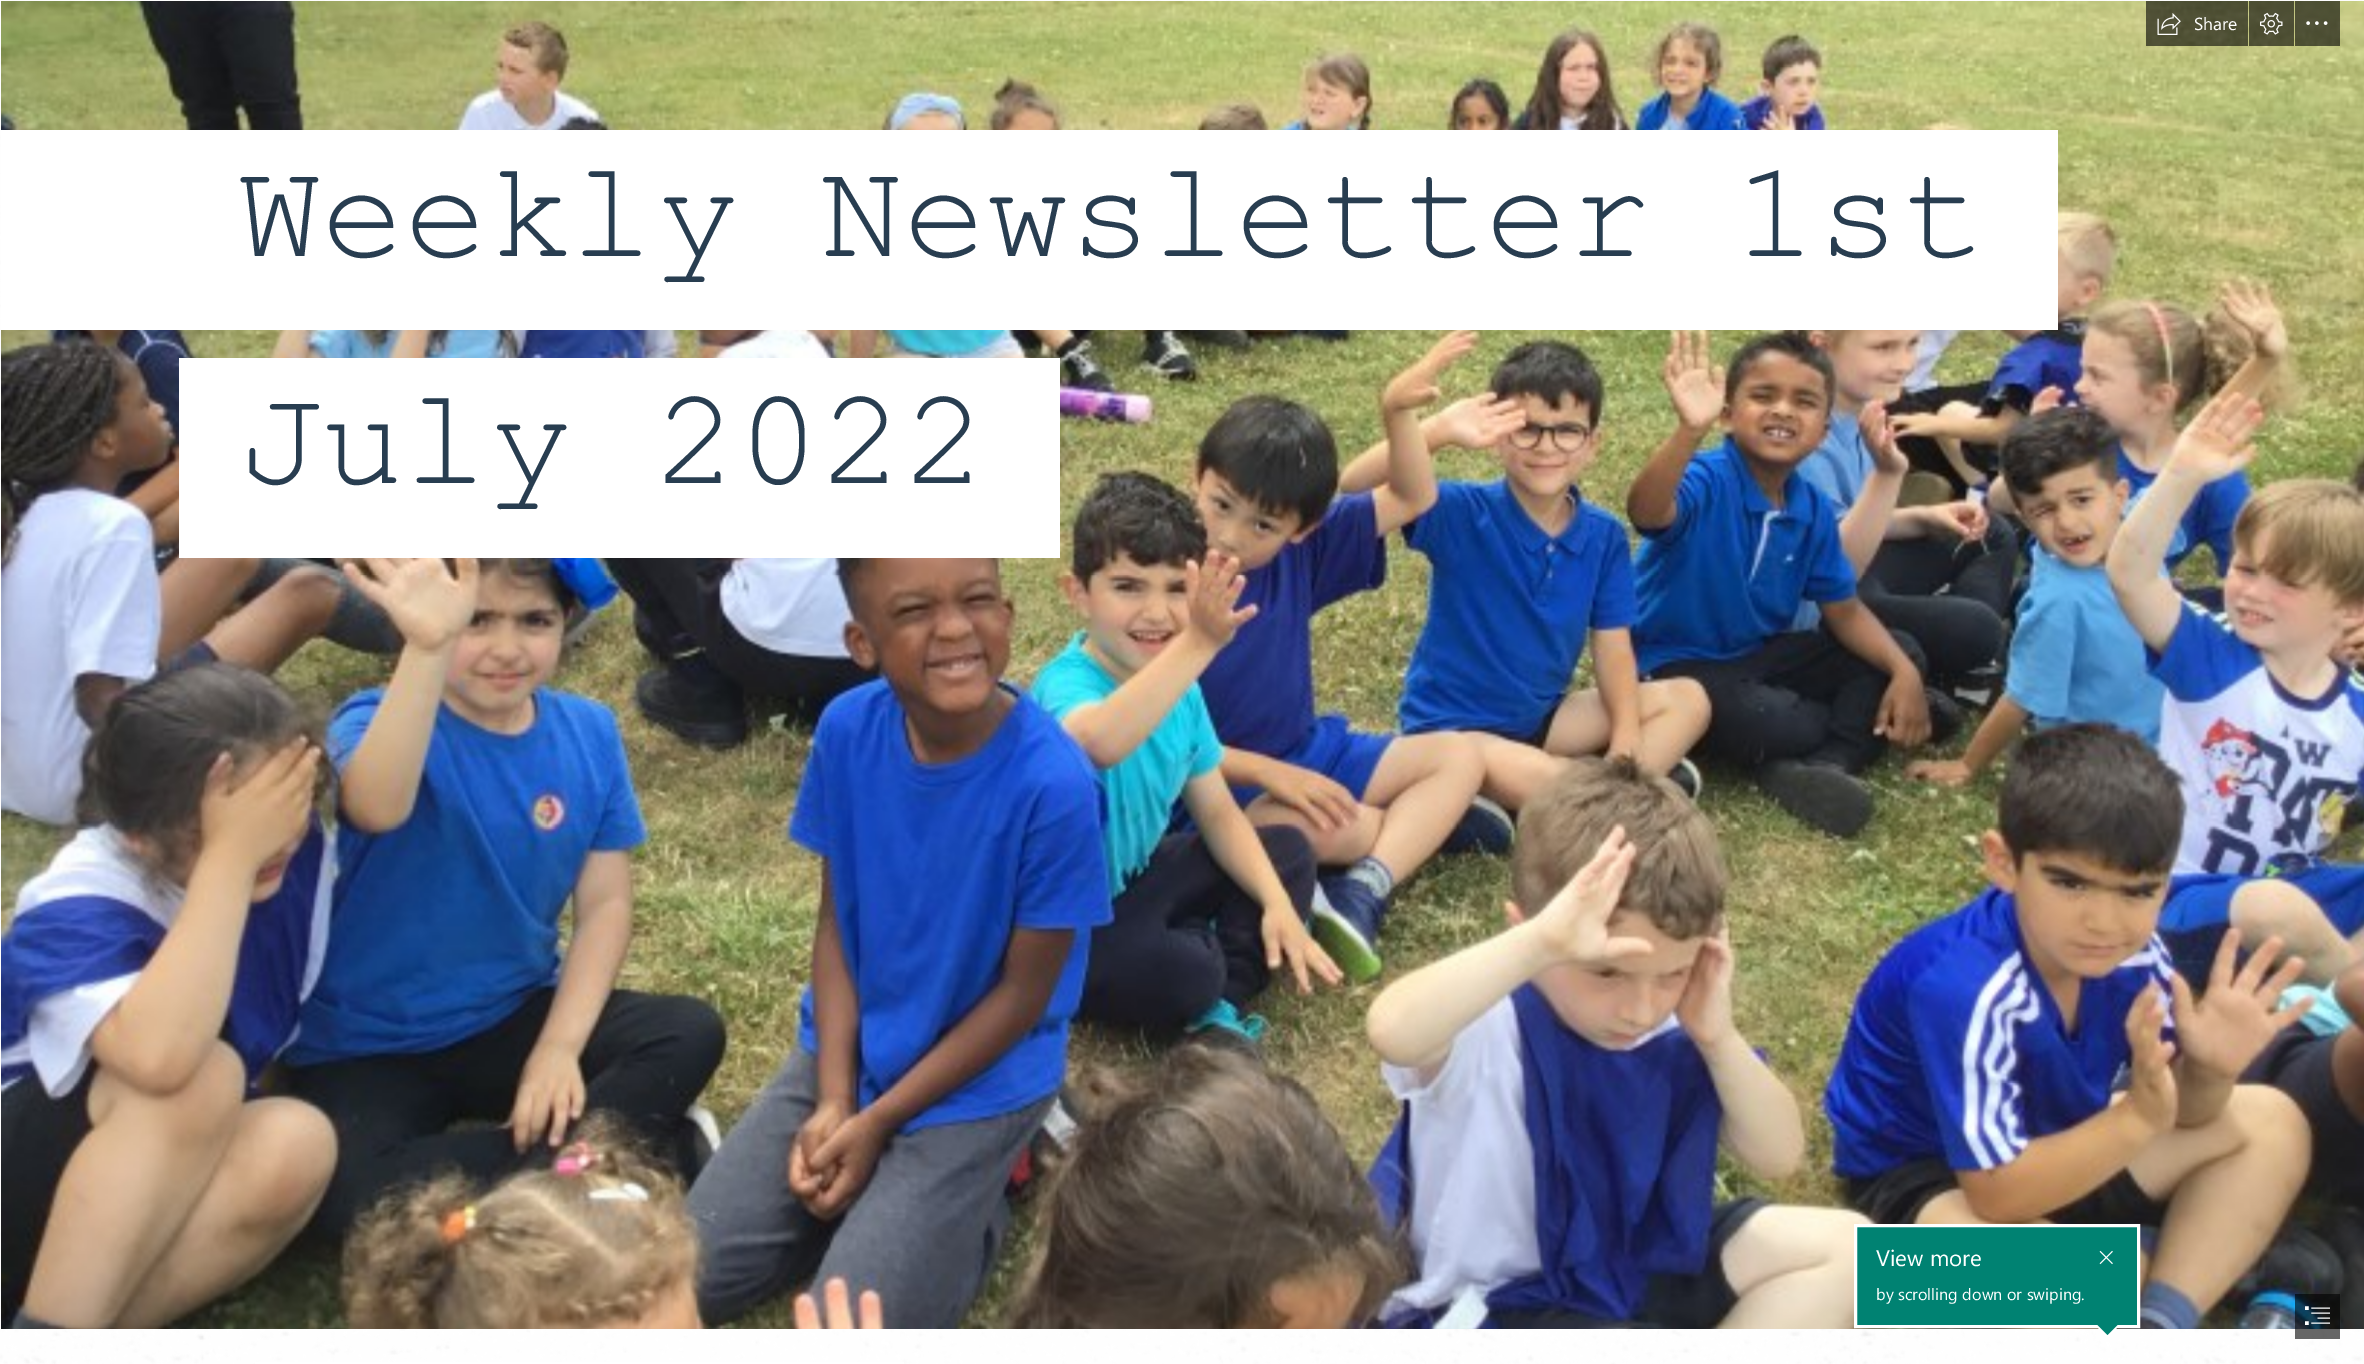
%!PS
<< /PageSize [2364 1364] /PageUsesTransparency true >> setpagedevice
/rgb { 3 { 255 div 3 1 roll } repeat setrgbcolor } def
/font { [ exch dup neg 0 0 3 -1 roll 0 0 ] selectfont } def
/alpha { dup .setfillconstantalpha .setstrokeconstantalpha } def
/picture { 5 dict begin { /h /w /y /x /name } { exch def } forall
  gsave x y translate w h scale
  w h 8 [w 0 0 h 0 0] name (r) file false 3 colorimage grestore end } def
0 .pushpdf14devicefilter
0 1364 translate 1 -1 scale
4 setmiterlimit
255 255 255 rgb
0 0 2364 1364 rectfill
(img/4.rgb) 0 0 2364 1364 picture
(img/5.rgb) 1 1 2363 1328 picture
0.6 alpha
0 0 0 rgb
2146 1 102 45 rectfill
1 alpha
(img/1.rgb) 2157 13 24 22 picture
0.6 alpha
2249 1 45 45 rectfill
1 alpha
(img/2.rgb) 2260 12 23 23 picture
0.6 alpha
2295 1 45 45 rectfill
1 alpha
(img/3.rgb) 2306 21 22 4 picture
[
  [1 130 2057 200 255 255 255]
  [179 358 881 200 255 255 255]
  [255 1362 649 2 255 255 255]
] { aload pop rgb rectfill } forall
0 130 114 rgb
1855.5 1225.5 moveto 2138.5 1225.5 lineto 2138.5 1326.5 lineto 1855.5 1326.5 lineto closepath gsave fill grestore
255 255 255 rgb
3 setlinewidth
stroke
(img/6.rgb) 2099 1250 14 15 picture
2095 1325 moveto 2120 1325 lineto 2107.5 1337.5 lineto closepath fill
0 130 114 rgb
2097.5 1325 moveto 2117.5 1325 lineto 2107.5 1335 lineto closepath fill
0.6 alpha
0 0 0 rgb
2295 1294 45 45 rectfill
1 alpha
(img/7.rgb) 2305 1306 25 19 picture
/SegoeUI-Regular 17.5 font
255 255 255 rgb
2194 30 moveto (Share) show
/CourierNew-Regular 138.5 font
40 61 80 rgb
238 256 moveto (Weekly Newsletter 1st) show
238 483 moveto (July 2022) show
/SegoeUI-Regular 22.5 font
255 255 255 rgb
1876 1266 moveto (View more) show
/SegoeUI-Regular 16.25 font
1876 1300 moveto (by scrolling down or swiping.) show
.poppdf14devicefilter showpage
